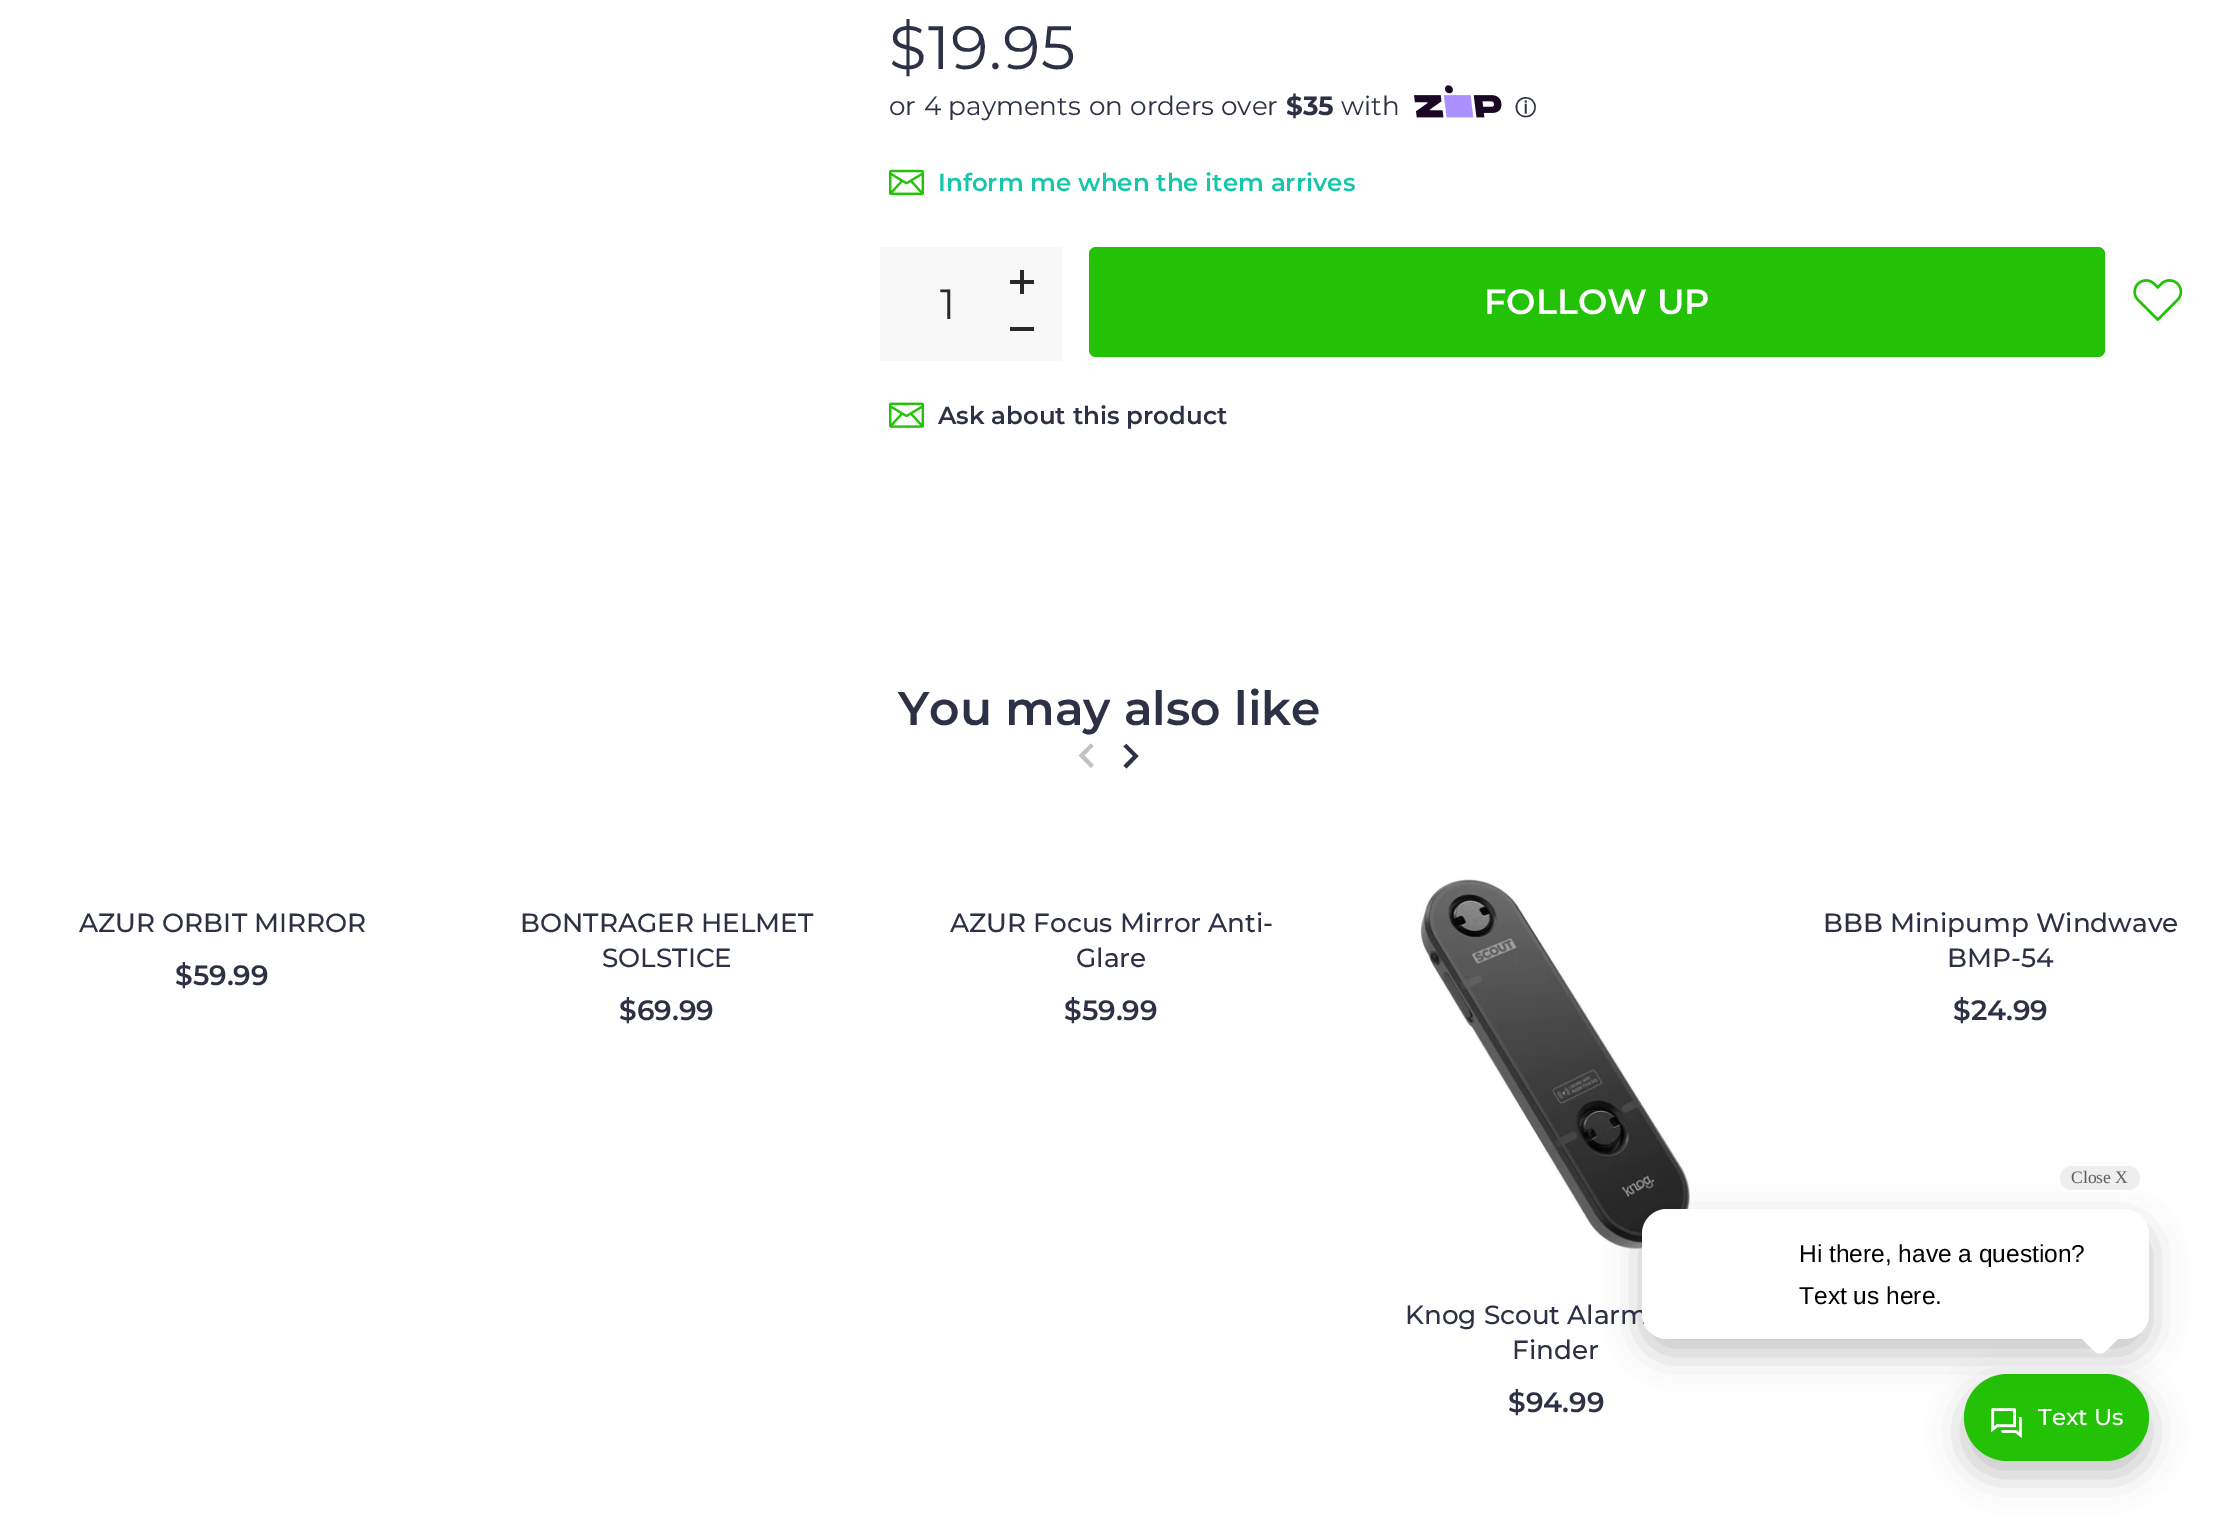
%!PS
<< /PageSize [2218 1530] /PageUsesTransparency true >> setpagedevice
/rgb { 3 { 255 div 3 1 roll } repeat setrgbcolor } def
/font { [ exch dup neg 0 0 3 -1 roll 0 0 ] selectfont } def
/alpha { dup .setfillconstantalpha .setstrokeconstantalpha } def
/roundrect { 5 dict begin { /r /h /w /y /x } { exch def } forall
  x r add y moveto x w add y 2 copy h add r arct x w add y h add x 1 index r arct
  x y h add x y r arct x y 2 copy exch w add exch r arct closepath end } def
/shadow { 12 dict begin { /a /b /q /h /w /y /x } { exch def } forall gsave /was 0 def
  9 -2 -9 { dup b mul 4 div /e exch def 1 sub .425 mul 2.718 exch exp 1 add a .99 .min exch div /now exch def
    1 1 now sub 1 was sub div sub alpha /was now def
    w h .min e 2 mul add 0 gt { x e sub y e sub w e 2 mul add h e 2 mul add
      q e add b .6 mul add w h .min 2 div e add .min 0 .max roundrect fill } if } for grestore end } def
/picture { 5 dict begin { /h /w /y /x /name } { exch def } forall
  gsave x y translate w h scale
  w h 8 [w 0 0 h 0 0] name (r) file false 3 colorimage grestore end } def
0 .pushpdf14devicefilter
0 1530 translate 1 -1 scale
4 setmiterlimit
255 255 255 rgb
0 0 2218 1530 rectfill
(img/1.rgb) 1414 85 88 33 picture
(img/2.rgb) 889 169 35 27 picture
[
  [880 247 182 114 248 248 248]
  [1010 280 24 4 40 40 40]
  [1020 270 4 24 40 40 40]
  [1010 327 24 4 40 40 40]
] { aload pop rgb rectfill } forall
35 194 7 rgb
1089 247 1016 110 7 roundrect fill
(img/3.rgb) 2133 279 50 42 picture
(img/4.rgb) 889 402 35 26 picture
192 193 199 rgb
1093.5 765 moveto 1091 768 lineto 1078.5 755.5 lineto 1091 743.5 lineto 1093.5 746 lineto 1084.5 755.5 lineto closepath fill
44 49 69 rgb
1123.5 765.5 moveto 1133 756 lineto 1123.5 746.5 lineto 1126.5 744 lineto 1138.5 756 lineto 1126.5 768.5 lineto closepath fill
(img/5.rgb) 1419 879 271 370 picture
0 0 0 rgb
1964 1388 185 87 43.5 17.5 0.24 shadow
35 194 6 rgb
1964 1374 185 87 43.5 roundrect fill
0 0 0 rgb
1642 1223 507 130 25 17.5 0.24 shadow
238 238 238 rgb
2060 1166 80 24 12 roundrect fill
(img/6.rgb) 1991 1408 31 30 picture
/Montserrat-Regular 61 font
44 49 69 rgb
889 69 moveto 1 0 ($19.95) ashow
/Montserrat-Regular 26.25 font
[
  [(or) 889 115]
  [(4 payments) 924 115]
  [(on orders over) 1089 115]
] { aload pop moveto show } forall
/Montserrat-Bold 26.25 font
1286 115 moveto ($35) show
/Montserrat-Regular 26.25 font
1341 115 moveto (with) show
/WenQuanYiZenHei-Bold 21 font
1515 115 moveto (ⓘ) show
/Montserrat-SemiBold 24.5 font
23 198 170 rgb
938 191 moveto (Inform me when the item arrives) show
/Montserrat-Regular 42 font
40 40 40 rgb
940 319 moveto (1) show
/Montserrat-SemiBold 35 font
255 255 255 rgb
1484 314 moveto (FOLLOW UP) show
/Montserrat-SemiBold 24.5 font
44 49 69 rgb
938 424 moveto (Ask about this product) show
/Montserrat-SemiBold 47.25 font
898 725 moveto (You may also like) show
/Montserrat-Medium 26.25 font
79 932 moveto (AZUR ORBIT MIRROR) show
/Montserrat-SemiBold 28 font
175 985 moveto ($59.99) show
/Montserrat-Medium 26.25 font
520 932 moveto (BONTRAGER HELMET) show
602 967 moveto (SOLSTICE) show
/Montserrat-SemiBold 28 font
619 1020 moveto ($69.99) show
/Montserrat-Medium 26.25 font
950 932 moveto (AZUR Focus Mirror Anti-) show
1076 967 moveto (Glare) show
/Montserrat-SemiBold 28 font
1064 1020 moveto ($59.99) show
/Montserrat-Medium 26.25 font
1823 932 moveto (BBB Minipump Windwave) show
1947 967 moveto (BMP-54) show
/Montserrat-SemiBold 28 font
1953 1020 moveto ($24.99) show
/Montserrat-Medium 26.25 font
1405 1324 moveto (Knog Scout Alarm) show
1512 1359 moveto (Finder) show
/Montserrat-SemiBold 28 font
1508 1412 moveto ($94.99) show
255 255 255 rgb
1642 1209 507 130 25 roundrect fill
/LiberationSerif-Regular 17.5 font
93 93 93 rgb
2071 1183 moveto (Close X) show
/LiberationSans-Regular 24.5 font
0 0 0 rgb
1799 1262 moveto (Hi there, have a question?) show
1799 1304 moveto (Text us here.) show
255 255 255 rgb
2105 1312 moveto 2120 1327 lineto 2123 1330 2123 1334 2120 1337 curveto 2105 1352 lineto 2102 1354 2098 1354 2095 1352 curveto 2080 1337 lineto 2077 1334 2077 1330 2080 1327 curveto 2095 1312 lineto 2098 1309 2102 1309 2105 1312 curveto closepath fill
/Montserrat-Medium 23 font
2038 1425 moveto (Text Us) show
.poppdf14devicefilter showpage
